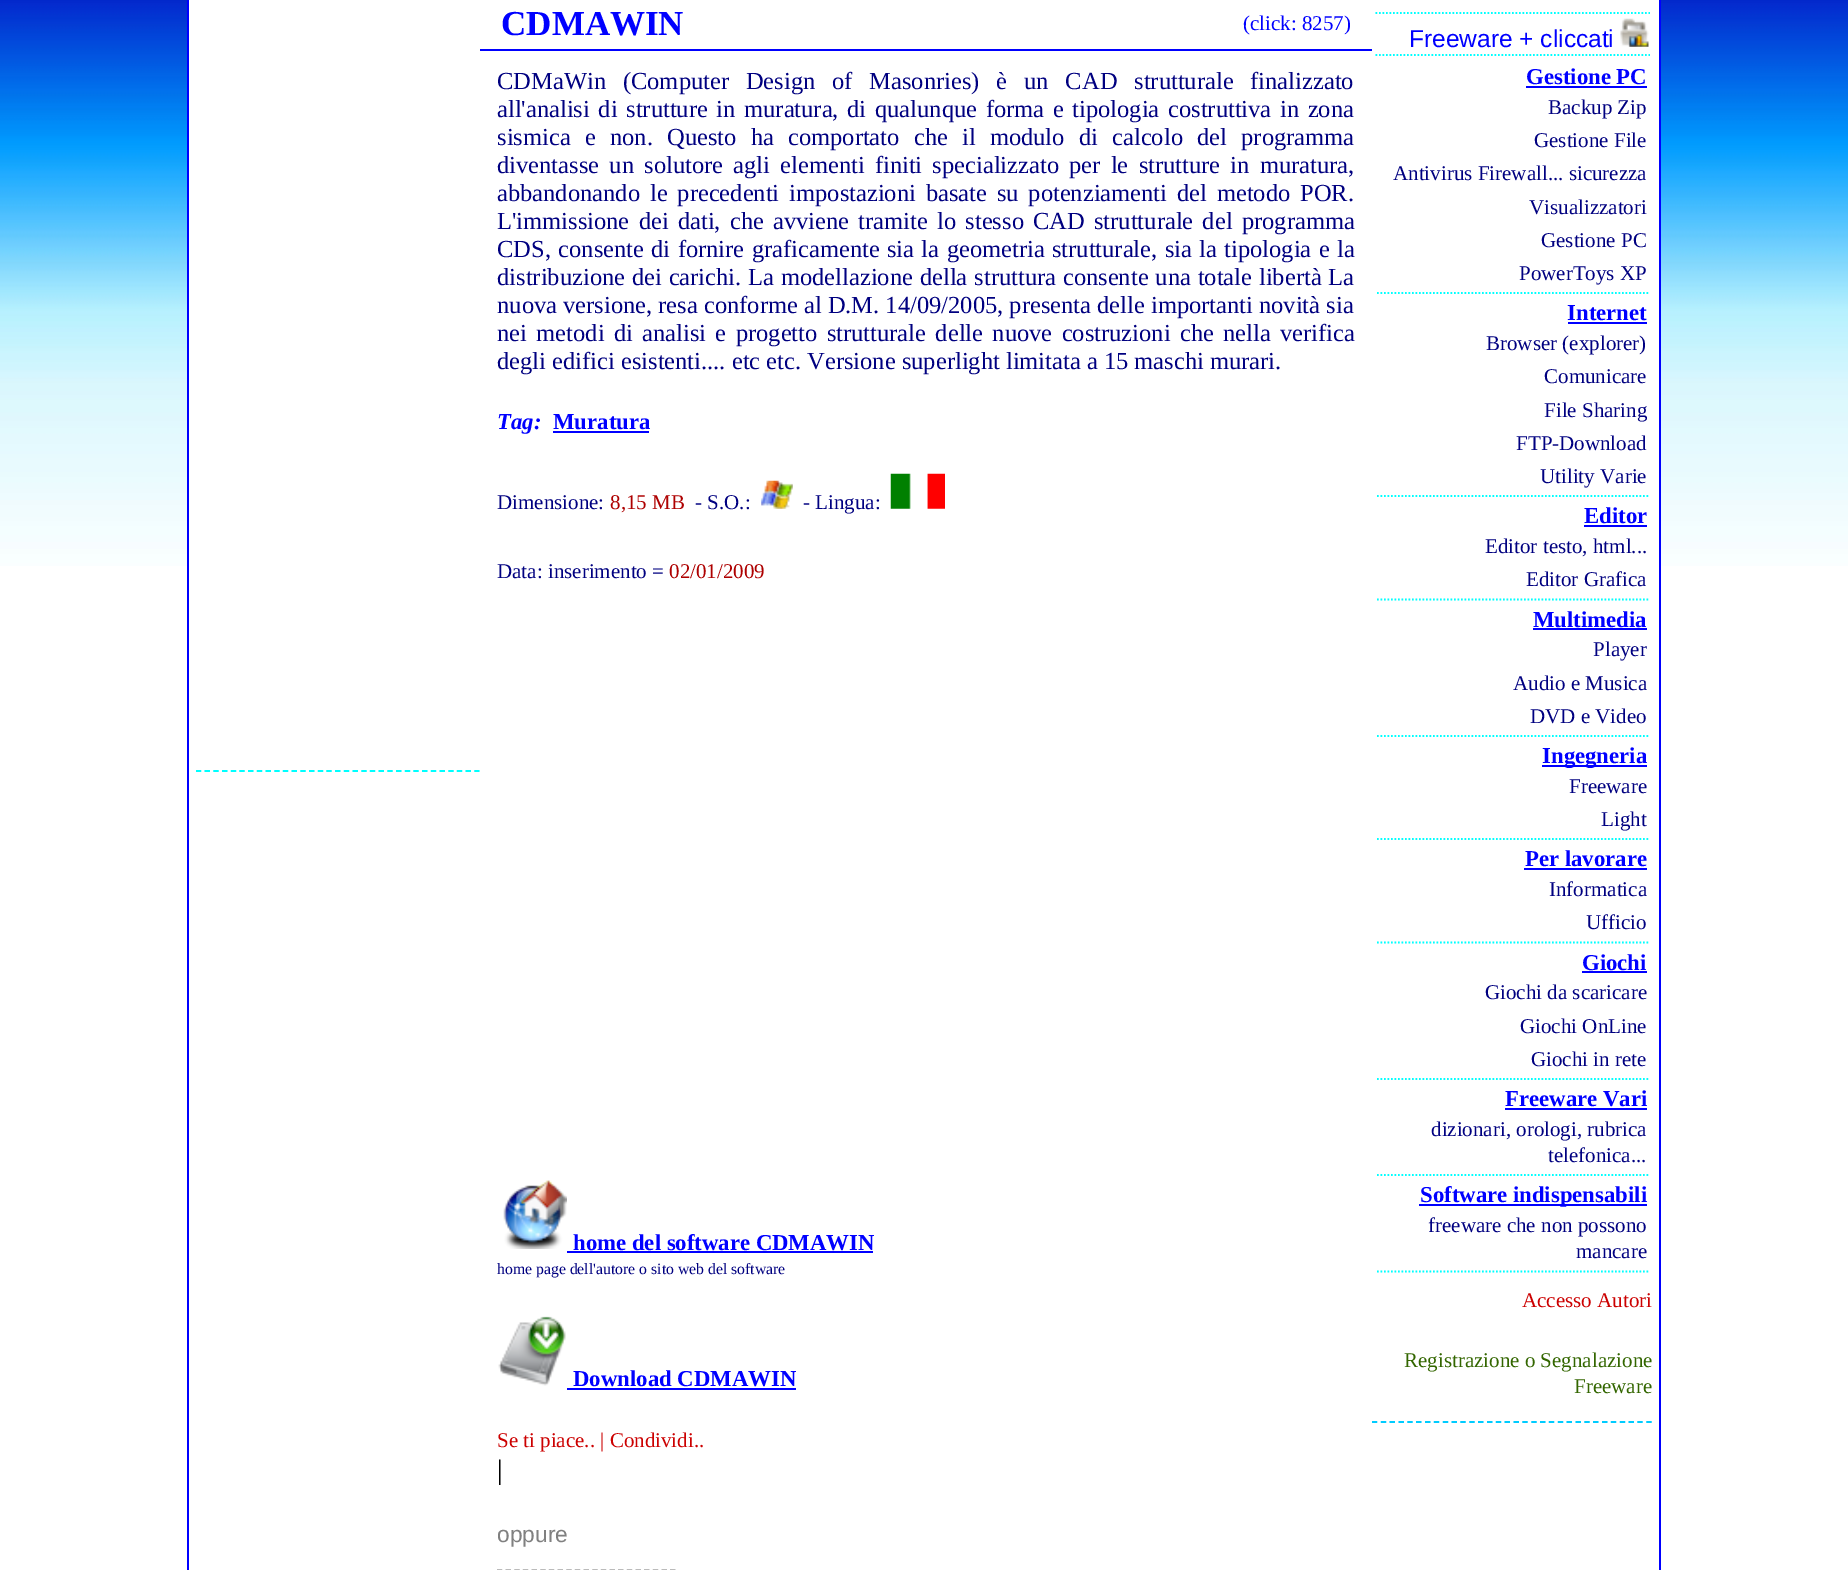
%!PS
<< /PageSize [1848 1570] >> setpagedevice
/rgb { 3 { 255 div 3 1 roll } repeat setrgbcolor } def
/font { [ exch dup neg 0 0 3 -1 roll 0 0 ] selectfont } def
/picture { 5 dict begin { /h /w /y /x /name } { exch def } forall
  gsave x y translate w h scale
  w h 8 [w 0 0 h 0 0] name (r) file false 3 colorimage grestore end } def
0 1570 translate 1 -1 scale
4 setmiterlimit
255 255 255 rgb
0 0 1848 1570 rectfill
(img/1.rgb) 0 0 1848 566 picture
[
  [189 0 1470 566 255 255 255]
  [1659 0 2 1570 0 0 255]
  [187 0 2 1570 0 0 255]
] { aload pop rgb rectfill } forall
0 255 255 rgb
1.8 setlinewidth
[5.25 3.45] 0 setdash
196 771 moveto 479.5 771 lineto stroke
0 0 255 rgb
480 49 892 2 rectfill
553 431 96 2 rectfill
(img/2.rgb) 761 480 32 29 picture
(img/3.rgb) 890 473 55 36 picture
(img/4.rgb) 503 1180 64 69 picture
567 1251 306 2 rectfill
(img/5.rgb) 498 1316 68 70 picture
567 1388 229 2 rectfill
128 128 128 rgb
[5.25 3.41] 0 setdash
497 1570.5 moveto 675.5 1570.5 lineto stroke
0 255 255 rgb
[1.75 1.75] 0 setdash
1375.5 13 moveto 1650 13 lineto stroke
1375.5 55 moveto 1650 55 lineto stroke
(img/6.rgb) 1620 18 29 29 picture
1377 293 moveto 1648.5 293 lineto stroke
0 0 255 rgb
1526 86 121 2 rectfill
0 255 255 rgb
1377 496 moveto 1648.5 496 lineto stroke
0 0 255 rgb
1568 322 79 2 rectfill
0 255 255 rgb
1377 599.5 moveto 1648.5 599.5 lineto stroke
0 0 255 rgb
1584 525 63 2 rectfill
0 255 255 rgb
1377 736 moveto 1648.5 736 lineto stroke
0 0 255 rgb
1533 628 114 2 rectfill
0 255 255 rgb
1377 839 moveto 1648.5 839 lineto stroke
0 0 255 rgb
1542 765 105 2 rectfill
0 255 255 rgb
1377 942.5 moveto 1648.5 942.5 lineto stroke
0 0 255 rgb
1524 868 123 2 rectfill
0 255 255 rgb
1377 1079 moveto 1648.5 1079 lineto stroke
0 0 255 rgb
1582 971 65 2 rectfill
0 255 255 rgb
1377 1175 moveto 1648.5 1175 lineto stroke
0 0 255 rgb
1505 1108 142 2 rectfill
0 255 255 rgb
1377 1271.5 moveto 1648.5 1271.5 lineto stroke
0 0 255 rgb
1419 1204 228 2 rectfill
0 204 255 rgb
[5.25 3.6] 0 setdash
1372 1422 moveto 1652 1422 lineto stroke
/LiberationSerif-Bold 35 font
0 0 255 rgb
501 35 moveto (CDMAWIN) show
/LiberationSerif-Regular 21 font
1243 30 moveto (\(click: 8257\)) show
/LiberationSerif-Regular 24.5 font
0 0 128 rgb
497 89 moveto 10.75 0 32 (CDMaWin \(Computer Design of Masonries\) è un CAD strutturale finalizzato) widthshow
497 117 moveto 2.5 0 32 (all'analisi di strutture in muratura, di qualunque forma e tipologia costruttiva in zona) widthshow
497 145 moveto 8.1 0 32 (sismica e non. Questo ha comportato che il modulo di calcolo del programma) widthshow
497 173 moveto 4.1 0 32 (diventasse un solutore agli elementi finiti specializzato per le strutture in muratura,) widthshow
497 201 moveto 3.75 0 32 (abbandonando le precedenti impostazioni basate su potenziamenti del metodo POR.) widthshow
497 229 moveto 3.1 0 32 (L'immissione dei dati, che avviene tramite lo stesso CAD strutturale del programma) widthshow
497 257 moveto 1.25 0 32 (CDS, consente di fornire graficamente sia la geometria strutturale, sia la tipologia e la) widthshow
497 285 moveto 0.75 0 32 (distribuzione dei carichi. La modellazione della struttura consente una totale libertà La) widthshow
497 313 moveto (nuova versione, resa conforme al D.M. 14/09/2005, presenta delle importanti novità sia) show
497 341 moveto 3.25 0 32 (nei metodi di analisi e progetto strutturale delle nuove costruzioni che nella verifica) widthshow
497 369 moveto (degli edifici esistenti.... etc etc. Versione superlight limitata a 15 maschi murari.) show
/LiberationSerif-BoldItalic 22.75 font
0 0 255 rgb
497 429 moveto (Tag:) show
/LiberationSerif-Bold 22.75 font
553 429 moveto (Muratura) show
/LiberationSerif-Regular 21 font
0 0 128 rgb
497 509 moveto (Dimensione:) show
174 0 0 rgb
610 509 moveto (8,15 MB) show
0 0 128 rgb
[
  [(- S.O.:) 695 509]
  [(- Lingua:) 803 509]
  [(Data: inserimento =) 497 578]
] { aload pop moveto show } forall
174 0 0 rgb
669 578 moveto (02/01/2009) show
/LiberationSerif-Bold 22.75 font
0 0 255 rgb
573 1250 moveto (home del software CDMAWIN) show
/LiberationSerif-Regular 15.75 font
0 0 128 rgb
497 1274 moveto (home page dell'autore o sito web del software) show
/LiberationSerif-Bold 22.75 font
0 0 255 rgb
573 1386 moveto (Download CDMAWIN) show
/LiberationSerif-Regular 21 font
204 0 0 rgb
497 1447 moveto (Se ti piace.. | Condividi..) show
/LiberationSerif-Regular 28 font
0 0 0 rgb
497 1479 moveto (|) show
/LiberationSans-Regular 22.75 font
128 128 128 rgb
497 1542 moveto (oppure) show
/LiberationSans-Regular 24.5 font
0 0 255 rgb
1409 47 moveto (Freeware + cliccati) show
/LiberationSerif-Bold 22.75 font
1526 84 moveto (Gestione PC) show
/LiberationSerif-Regular 21 font
0 0 128 rgb
[
  [(Backup Zip) 1548 114]
  [(Gestione File) 1534 147]
  [(Antivirus Firewall... sicurezza) 1393 180]
  [(Visualizzatori) 1529 214]
  [(Gestione PC) 1541 247]
  [(PowerToys XP) 1519 280]
] { aload pop moveto show } forall
/LiberationSerif-Bold 22.75 font
0 0 255 rgb
1567 320 moveto (Internet) show
/LiberationSerif-Regular 21 font
0 0 128 rgb
[
  [(Browser \(explorer\)) 1486 350]
  [(Comunicare) 1544 383]
  [(File Sharing) 1544 417]
  [(FTP-Download) 1516 450]
  [(Utility Varie) 1540 483]
] { aload pop moveto show } forall
/LiberationSerif-Bold 22.75 font
0 0 255 rgb
1584 523 moveto (Editor) show
/LiberationSerif-Regular 21 font
0 0 128 rgb
1485 553 moveto (Editor testo, html...) show
1526 586 moveto (Editor Grafica) show
/LiberationSerif-Bold 22.75 font
0 0 255 rgb
1533 627 moveto (Multimedia) show
/LiberationSerif-Regular 21 font
0 0 128 rgb
[
  [(Player) 1593 656]
  [(Audio e Musica) 1513 690]
  [(DVD e Video) 1530 723]
] { aload pop moveto show } forall
/LiberationSerif-Bold 22.75 font
0 0 255 rgb
1542 763 moveto (Ingegneria) show
/LiberationSerif-Regular 21 font
0 0 128 rgb
1569 793 moveto (Freeware) show
1601 826 moveto (Light) show
/LiberationSerif-Bold 22.75 font
0 0 255 rgb
1525 866 moveto (Per lavorare) show
/LiberationSerif-Regular 21 font
0 0 128 rgb
1549 896 moveto (Informatica) show
1586 929 moveto (Ufficio) show
/LiberationSerif-Bold 22.75 font
0 0 255 rgb
1582 970 moveto (Giochi) show
/LiberationSerif-Regular 21 font
0 0 128 rgb
[
  [(Giochi da scaricare) 1485 999]
  [(Giochi OnLine) 1520 1033]
  [(Giochi in rete) 1531 1066]
] { aload pop moveto show } forall
/LiberationSerif-Bold 22.75 font
0 0 255 rgb
1505 1106 moveto (Freeware Vari) show
/LiberationSerif-Regular 21 font
0 0 128 rgb
1431 1136 moveto (dizionari, orologi, rubrica) show
1548 1162 moveto (telefonica...) show
/LiberationSerif-Bold 22.75 font
0 0 255 rgb
1420 1202 moveto (Software indispensabili) show
/LiberationSerif-Regular 21 font
0 0 128 rgb
1428 1232 moveto (freeware che non possono) show
1576 1258 moveto (mancare) show
204 0 0 rgb
1522 1307 moveto (Accesso Autori) show
51 102 0 rgb
1404 1367 moveto (Registrazione o Segnalazione) show
1574 1393 moveto (Freeware) show
showpage
